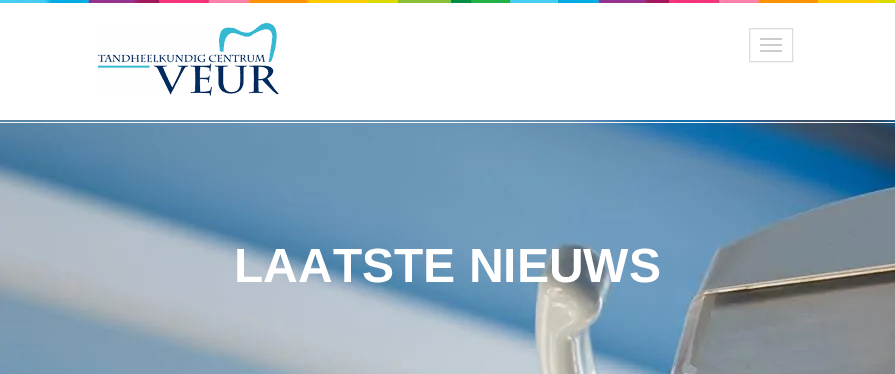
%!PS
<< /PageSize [895 374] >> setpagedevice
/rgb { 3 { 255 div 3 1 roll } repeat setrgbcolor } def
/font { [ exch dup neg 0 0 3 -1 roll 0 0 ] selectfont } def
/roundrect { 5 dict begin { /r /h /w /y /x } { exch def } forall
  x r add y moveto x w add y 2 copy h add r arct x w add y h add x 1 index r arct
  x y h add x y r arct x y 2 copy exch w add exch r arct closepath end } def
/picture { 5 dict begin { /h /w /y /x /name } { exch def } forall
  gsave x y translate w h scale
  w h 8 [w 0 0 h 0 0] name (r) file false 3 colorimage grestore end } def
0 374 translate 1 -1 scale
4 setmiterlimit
255 255 255 rgb
0 0 895 374 rectfill
(img/1.rgb) 0 0 895 3 picture
(img/2.rgb) 97 23 182 73 picture
221 221 221 rgb
749.5 28.5 43 33 rectstroke
204 204 204 rgb
760 38 22 2 1 roundrect fill
760 44 22 2 1 roundrect fill
760 50 22 2 1 roundrect fill
(img/3.rgb) 0 120 895 254 picture
244 244 244 rgb
0 122 895 1 rectfill
/LiberationSans-Bold 48 font
255 255 255 rgb
234 282 moveto (LAATSTE NIEUWS) show
showpage
